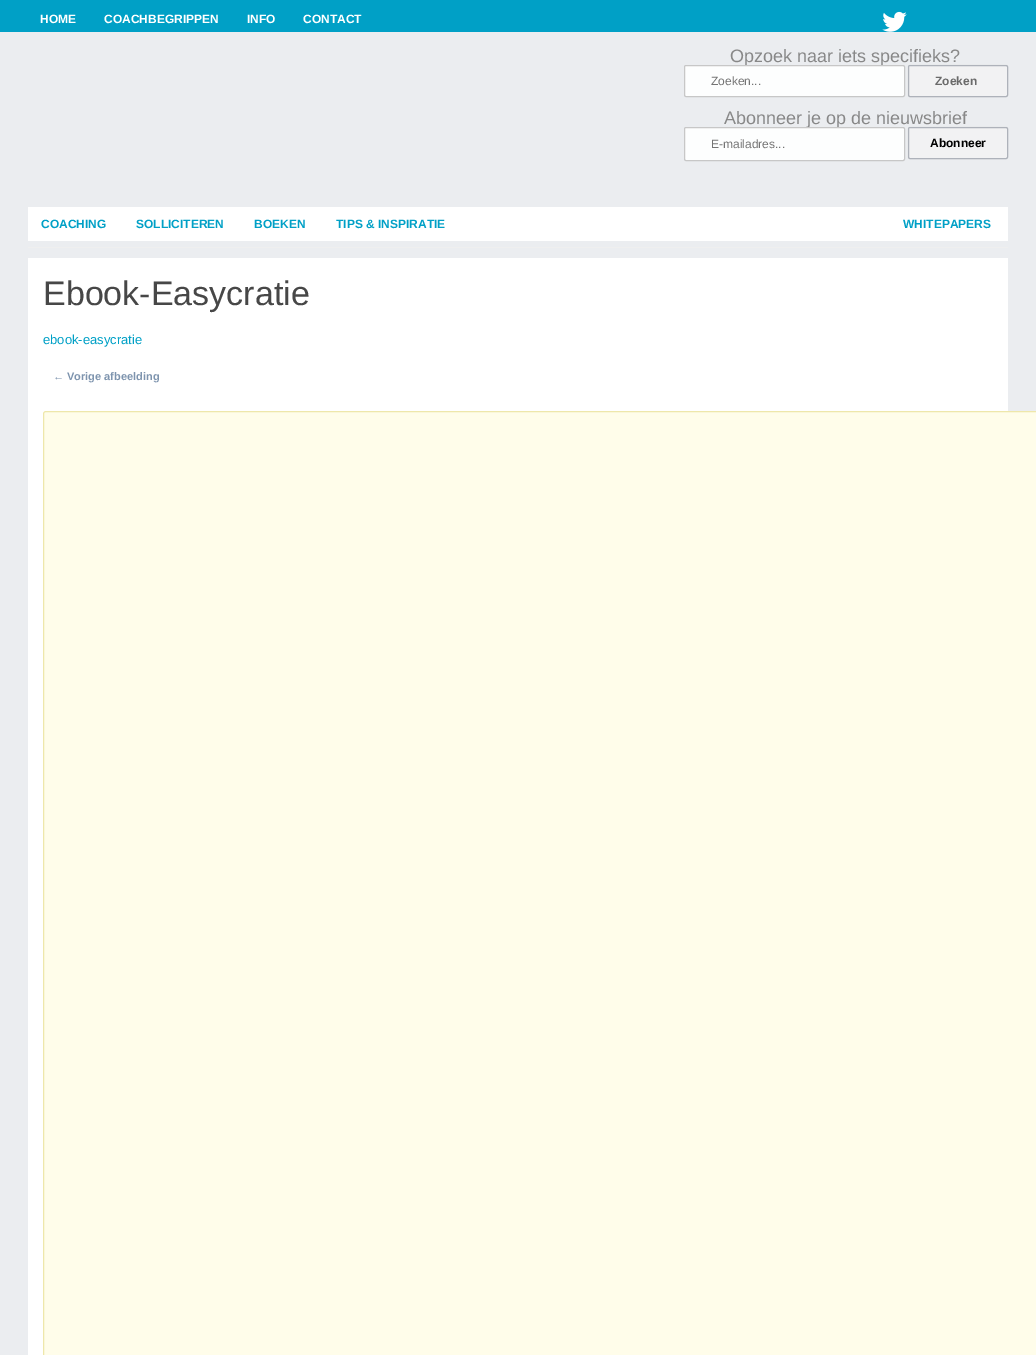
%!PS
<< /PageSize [1036 1355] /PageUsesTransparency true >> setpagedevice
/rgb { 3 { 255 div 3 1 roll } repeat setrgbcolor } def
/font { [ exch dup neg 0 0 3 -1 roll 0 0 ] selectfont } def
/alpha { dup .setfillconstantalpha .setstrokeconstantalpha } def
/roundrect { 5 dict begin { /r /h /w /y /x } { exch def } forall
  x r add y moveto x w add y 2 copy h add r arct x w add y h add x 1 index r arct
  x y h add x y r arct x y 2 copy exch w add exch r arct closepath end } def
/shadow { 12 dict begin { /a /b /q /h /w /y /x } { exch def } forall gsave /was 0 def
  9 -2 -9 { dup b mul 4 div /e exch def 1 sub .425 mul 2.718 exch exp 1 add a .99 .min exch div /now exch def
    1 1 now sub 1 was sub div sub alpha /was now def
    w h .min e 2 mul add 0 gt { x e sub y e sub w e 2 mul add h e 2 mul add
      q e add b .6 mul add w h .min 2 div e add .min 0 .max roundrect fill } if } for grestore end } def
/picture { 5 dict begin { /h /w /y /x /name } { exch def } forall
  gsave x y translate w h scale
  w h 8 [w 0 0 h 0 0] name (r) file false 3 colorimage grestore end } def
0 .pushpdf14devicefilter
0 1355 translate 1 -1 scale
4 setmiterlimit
235 237 240 rgb
0 0 1036 1355 rectfill
0 160 198 rgb
0 0 1036 32 rectfill
(img/1.rgb) 882 11 25 21 picture
225 226 225 rgb
908 65 100 32 2 0.5 1 shadow
908 127 100 32 2 0.5 1 shadow
[
  [28 207 980 34 255 255 255]
  [28 247 980 1 239 239 239]
  [28 258 980 1097 255 255 255]
] { aload pop rgb rectfill } forall
255 253 234 rgb
43.5 411.5 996 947 2.5 roundrect gsave fill grestore
238 231 171 rgb
stroke
/LiberationSans-Bold 12 font
255 255 255 rgb
[
  [(HOME) 40 23]
  [(COACHBEGRIPPEN) 104 23]
  [(INFO) 247 23]
  [(CONTACT) 303 23]
] { aload pop moveto show } forall
/LiberationSans-Regular 18 font
136 136 136 rgb
730 62 moveto (Opzoek naar iets specifieks?) show
253 254 254 rgb
684.5 65.5 220 31 1.5 roundrect gsave fill grestore
199 199 199 rgb
stroke
/LiberationSans-Regular 12 font
116 116 116 rgb
711 85 moveto (Zoeken...) show
242 242 243 rgb
908.5 65.5 99 31 1.5 roundrect gsave fill grestore
174 178 186 rgb
stroke
/LiberationSans-Bold 12 font
106 106 106 rgb
935 85 moveto (Zoeken) show
/LiberationSans-Regular 18 font
136 136 136 rgb
724 124 moveto (Abonneer je op de nieuwsbrief) show
253 254 254 rgb
684.5 127.5 220 33 1.5 roundrect gsave fill grestore
199 199 199 rgb
stroke
/LiberationSans-Regular 12 font
116 116 116 rgb
711 148 moveto (E-mailadres...) show
242 242 243 rgb
908.5 127.5 99 31 1.5 roundrect gsave fill grestore
174 178 186 rgb
stroke
/LiberationSans-Bold 12 font
0 0 0 rgb
930 147 moveto (Abonneer) show
0 160 198 rgb
[
  [(COACHING) 41 228]
  [(SOLLICITEREN) 136 228]
  [(BOEKEN) 254 228]
  [(TIPS & INSPIRATIE) 336 228]
  [(WHITEPAPERS) 903 228]
] { aload pop moveto show } forall
/LiberationSans-Regular 34 font
71 71 71 rgb
43 305 moveto (Ebook-Easycratie) show
/LiberationSans-Regular 13 font
0 160 198 rgb
43 344 moveto (ebook-easycratie) show
/LiberationSans-Bold 11 font
126 148 174 rgb
53 380 moveto (← Vorige afbeelding) show
.poppdf14devicefilter showpage
